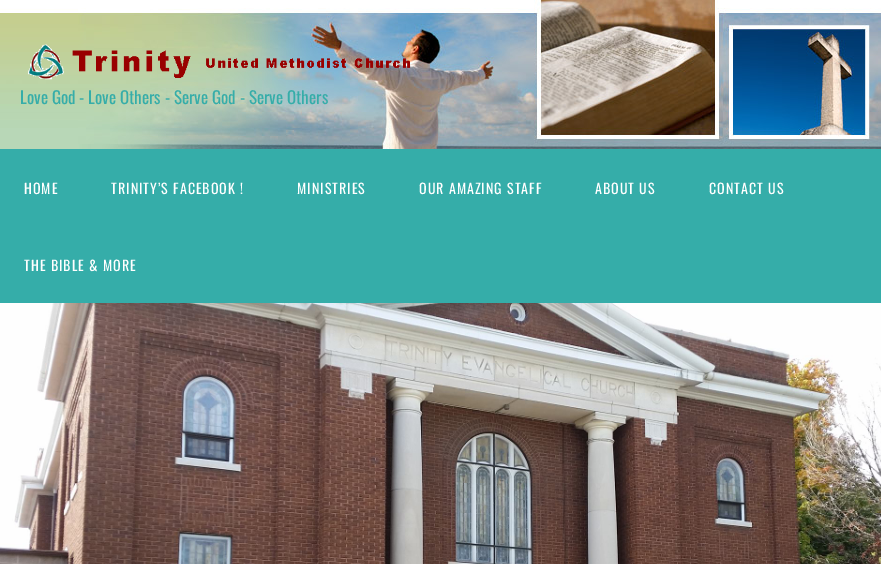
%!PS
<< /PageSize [881 564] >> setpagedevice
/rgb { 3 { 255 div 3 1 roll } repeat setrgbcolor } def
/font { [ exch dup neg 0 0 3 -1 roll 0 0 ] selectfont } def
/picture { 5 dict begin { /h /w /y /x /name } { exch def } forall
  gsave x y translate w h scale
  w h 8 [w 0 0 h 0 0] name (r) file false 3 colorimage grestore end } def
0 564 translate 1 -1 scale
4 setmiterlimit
255 255 255 rgb
0 0 881 564 rectfill
(img/1.rgb) 0 0 881 149 picture
(img/2.rgb) 28 44 382 36 picture
53 173 169 rgb
0 149 881 154 rectfill
(img/3.rgb) 0 303 881 261 picture
/Oswald-Regular 17 font
20 104 moveto (Love God - Love Others - Serve God - Serve Others) show
/Oswald-Regular 14 font
255 255 255 rgb
24 194 moveto 1 0 (HOME) ashow
111 194 moveto 1 0 (TRINITY’S FACEBOOK !) ashow
297 194 moveto 1 0 (MINISTRIES) ashow
419 194 moveto 1 0 (OUR AMAZING STAFF) ashow
595 194 moveto 1 0 (ABOUT US) ashow
709 194 moveto 1 0 (CONTACT US) ashow
24 271 moveto 1 0 (THE BIBLE & MORE) ashow
showpage
